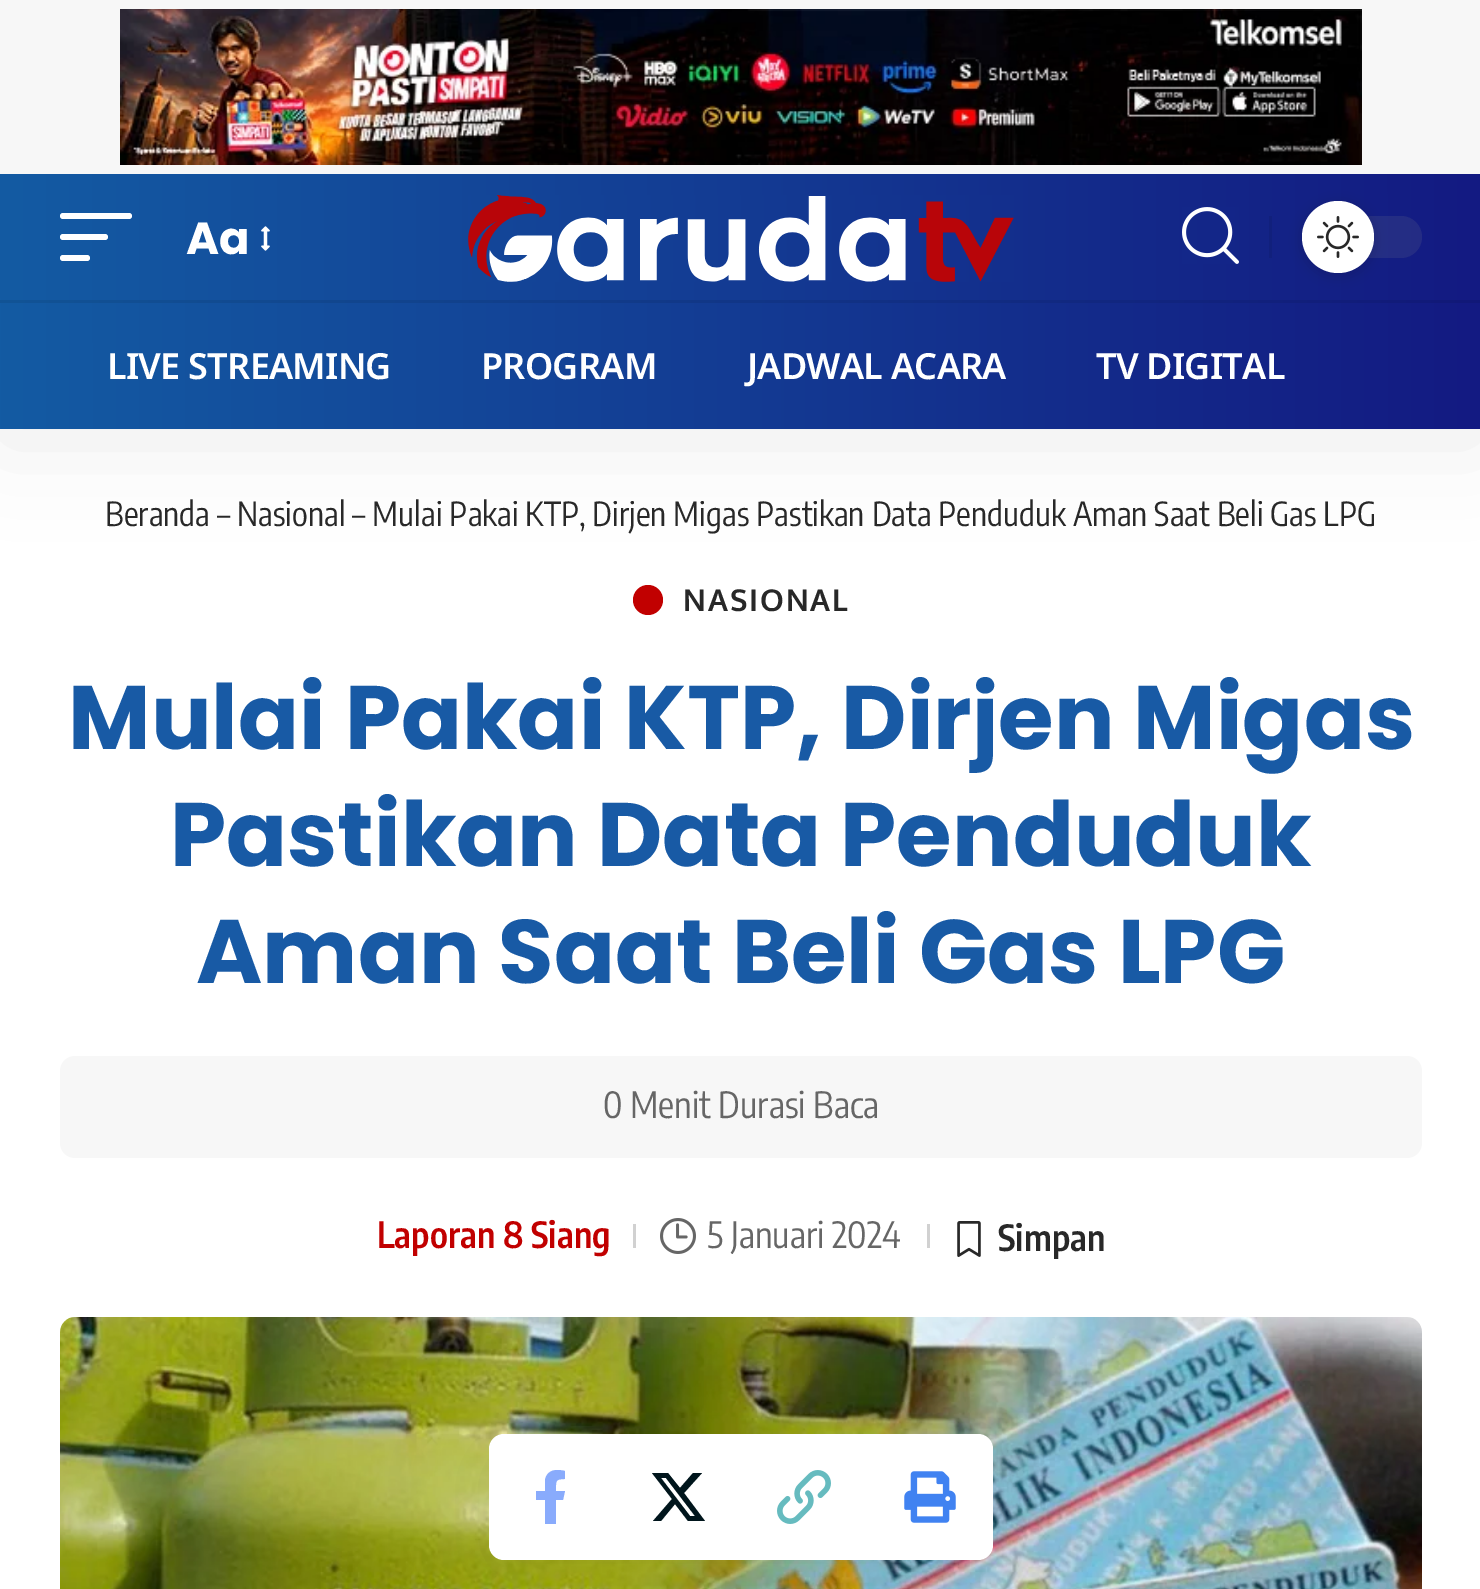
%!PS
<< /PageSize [1480 1589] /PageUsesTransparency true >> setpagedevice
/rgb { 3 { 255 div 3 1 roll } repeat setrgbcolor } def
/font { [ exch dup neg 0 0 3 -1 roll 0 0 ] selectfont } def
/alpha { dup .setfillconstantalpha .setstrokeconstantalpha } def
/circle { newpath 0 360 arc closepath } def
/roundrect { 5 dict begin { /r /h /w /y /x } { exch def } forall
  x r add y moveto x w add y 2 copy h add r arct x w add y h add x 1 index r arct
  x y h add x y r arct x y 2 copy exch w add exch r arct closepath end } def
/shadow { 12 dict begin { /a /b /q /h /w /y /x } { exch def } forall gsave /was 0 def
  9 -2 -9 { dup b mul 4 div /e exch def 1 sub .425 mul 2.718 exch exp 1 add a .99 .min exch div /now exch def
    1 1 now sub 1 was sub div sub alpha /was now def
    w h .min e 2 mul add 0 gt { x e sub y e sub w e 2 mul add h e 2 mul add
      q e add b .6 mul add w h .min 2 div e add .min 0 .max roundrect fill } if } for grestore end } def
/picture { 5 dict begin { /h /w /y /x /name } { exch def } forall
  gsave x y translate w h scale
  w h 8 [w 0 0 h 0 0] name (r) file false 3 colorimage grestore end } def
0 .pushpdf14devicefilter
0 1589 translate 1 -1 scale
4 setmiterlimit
255 255 255 rgb
0 0 1480 1589 rectfill
247 247 247 rgb
0 0 1480 174 rectfill
(img/1.rgb) 120 9 1242 156 picture
gsave
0 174 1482 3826 rectclip
0 0 0 rgb
0 186 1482 255 0 45 0.07 shadow
grestore
gsave 0 174 moveto 1480 174 lineto 1480 429 lineto 0 429 lineto closepath clip newpath
<< /ShadingType 2 /ColorSpace /DeviceRGB /Coords [0 302 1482 301] /Extend [true true] /Function << /FunctionType 2 /Domain [0 1] /C0 [0.075 0.357 0.639] /C1 [0.075 0.102 0.51] /N 1 >> >> shfill grestore
gsave 0 300 moveto 1480 300 lineto 1480 303 lineto 0 303 lineto closepath clip newpath
<< /ShadingType 2 /ColorSpace /DeviceRGB /Coords [0 302 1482 301] /Extend [true true] /Function << /FunctionType 2 /Domain [0 1] /C0 [0.067 0.329 0.588] /C1 [0.067 0.094 0.471] /N 1 >> >> shfill grestore
255 255 255 rgb
60 213 72 6 3 roundrect fill
60 234 48 6 3 roundrect fill
60 255 30 6 3 roundrect fill
(img/2.rgb) 261 226 9 25 picture
(img/3.rgb) 468 195 546 87 picture
(img/4.rgb) 1182 207 57 57 picture
17 32 124 rgb
1269 216 3 42 rectfill
0.15 alpha
136 136 136 rgb
1302 216 120 42 21 roundrect fill
1 alpha
0 0 0 rgb
1302 204 72 72 36 6 0.12 shadow
255 255 255 rgb
1338 237 36 circle fill
(img/5.rgb) 1317 216 42 42 picture
193 0 0 rgb
648 600 15 circle fill
247 247 247 rgb
60 1056 1362 102 15 roundrect fill
209 209 209 rgb
633 1224 3 24 rectfill
(img/6.rgb) 660 1218 36 36 picture
927 1224 3 24 rectfill
(img/7.rgb) 957 1221 24 36 picture
(img/10.rgb) 60 1317 1362 272 picture
0 0 0 rgb
489 1449 504 126 15 45 0.07 shadow
255 255 255 rgb
489 1434 504 126 15 roundrect fill
137 171 252 rgb
563 1500 moveto 565 1491 lineto 556 1491 lineto 556 1481 555 1479 565 1479 curveto 565 1471 lineto 557 1469 547 1469 545 1480 curveto 545 1491 lineto 536 1491 lineto 536 1500 lineto 545 1500 lineto 545 1524 lineto 556 1524 lineto 556 1500 lineto closepath fill
0 21 28 rgb
693 1473 moveto 702 1473 lineto 684 1493 lineto 705 1521 lineto 688 1521 lineto 675 1504 lineto 661 1521 lineto 653 1521 lineto 672 1499 lineto 652 1473 lineto 668 1473 lineto 680 1488 lineto closepath 690 1516 moveto 695 1516 lineto 666 1478 lineto 661 1478 lineto closepath fill
(img/8.rgb) 777 1470 54 54 picture
(img/9.rgb) 904 1471 52 52 picture
/Poppins-Bold 45 font
255 255 255 rgb
186 254 moveto (Aa) show
/NotoSans-SemiBold 36 font
107 379 moveto -0.75 0 (LIVE STREAMING) ashow
481 379 moveto -0.75 0 (PROGRAM) ashow
747 379 moveto -0.75 0 (JADWAL ACARA) ashow
1096 379 moveto -0.75 0 (TV DIGITAL) ashow
/EncodeSansCondensed-Regular 33 font
40 40 40 rgb
105 526 moveto (Beranda – Nasional – Mulai Pakai KTP, Dirjen Migas Pastikan Data Penduduk Aman Saat Beli Gas LPG) show
/Oxygen-Bold 30 font
683 611 moveto 2 0 (NASIONAL) ashow
/Poppins-Bold 90 font
24 90 165 rgb
[
  [(Mulai Pakai KTP, Dirjen Migas) 68 749]
  [(Pastikan Data Penduduk) 170 866]
  [(Aman Saat Beli Gas LPG) 196 983]
] { aload pop moveto show } forall
/EncodeSansCondensed-Regular 36 font
102 102 102 rgb
603 1118 moveto (0 Menit Durasi Baca) show
/EncodeSansCondensed-SemiBold 36 font
193 0 0 rgb
377 1248 moveto (Laporan 8 Siang) show
/EncodeSansCondensed-Regular 36 font
102 102 102 rgb
707 1248 moveto (5 Januari 2024) show
/EncodeSansCondensed-SemiBold 36 font
40 40 40 rgb
998 1251 moveto (Simpan) show
.poppdf14devicefilter showpage
